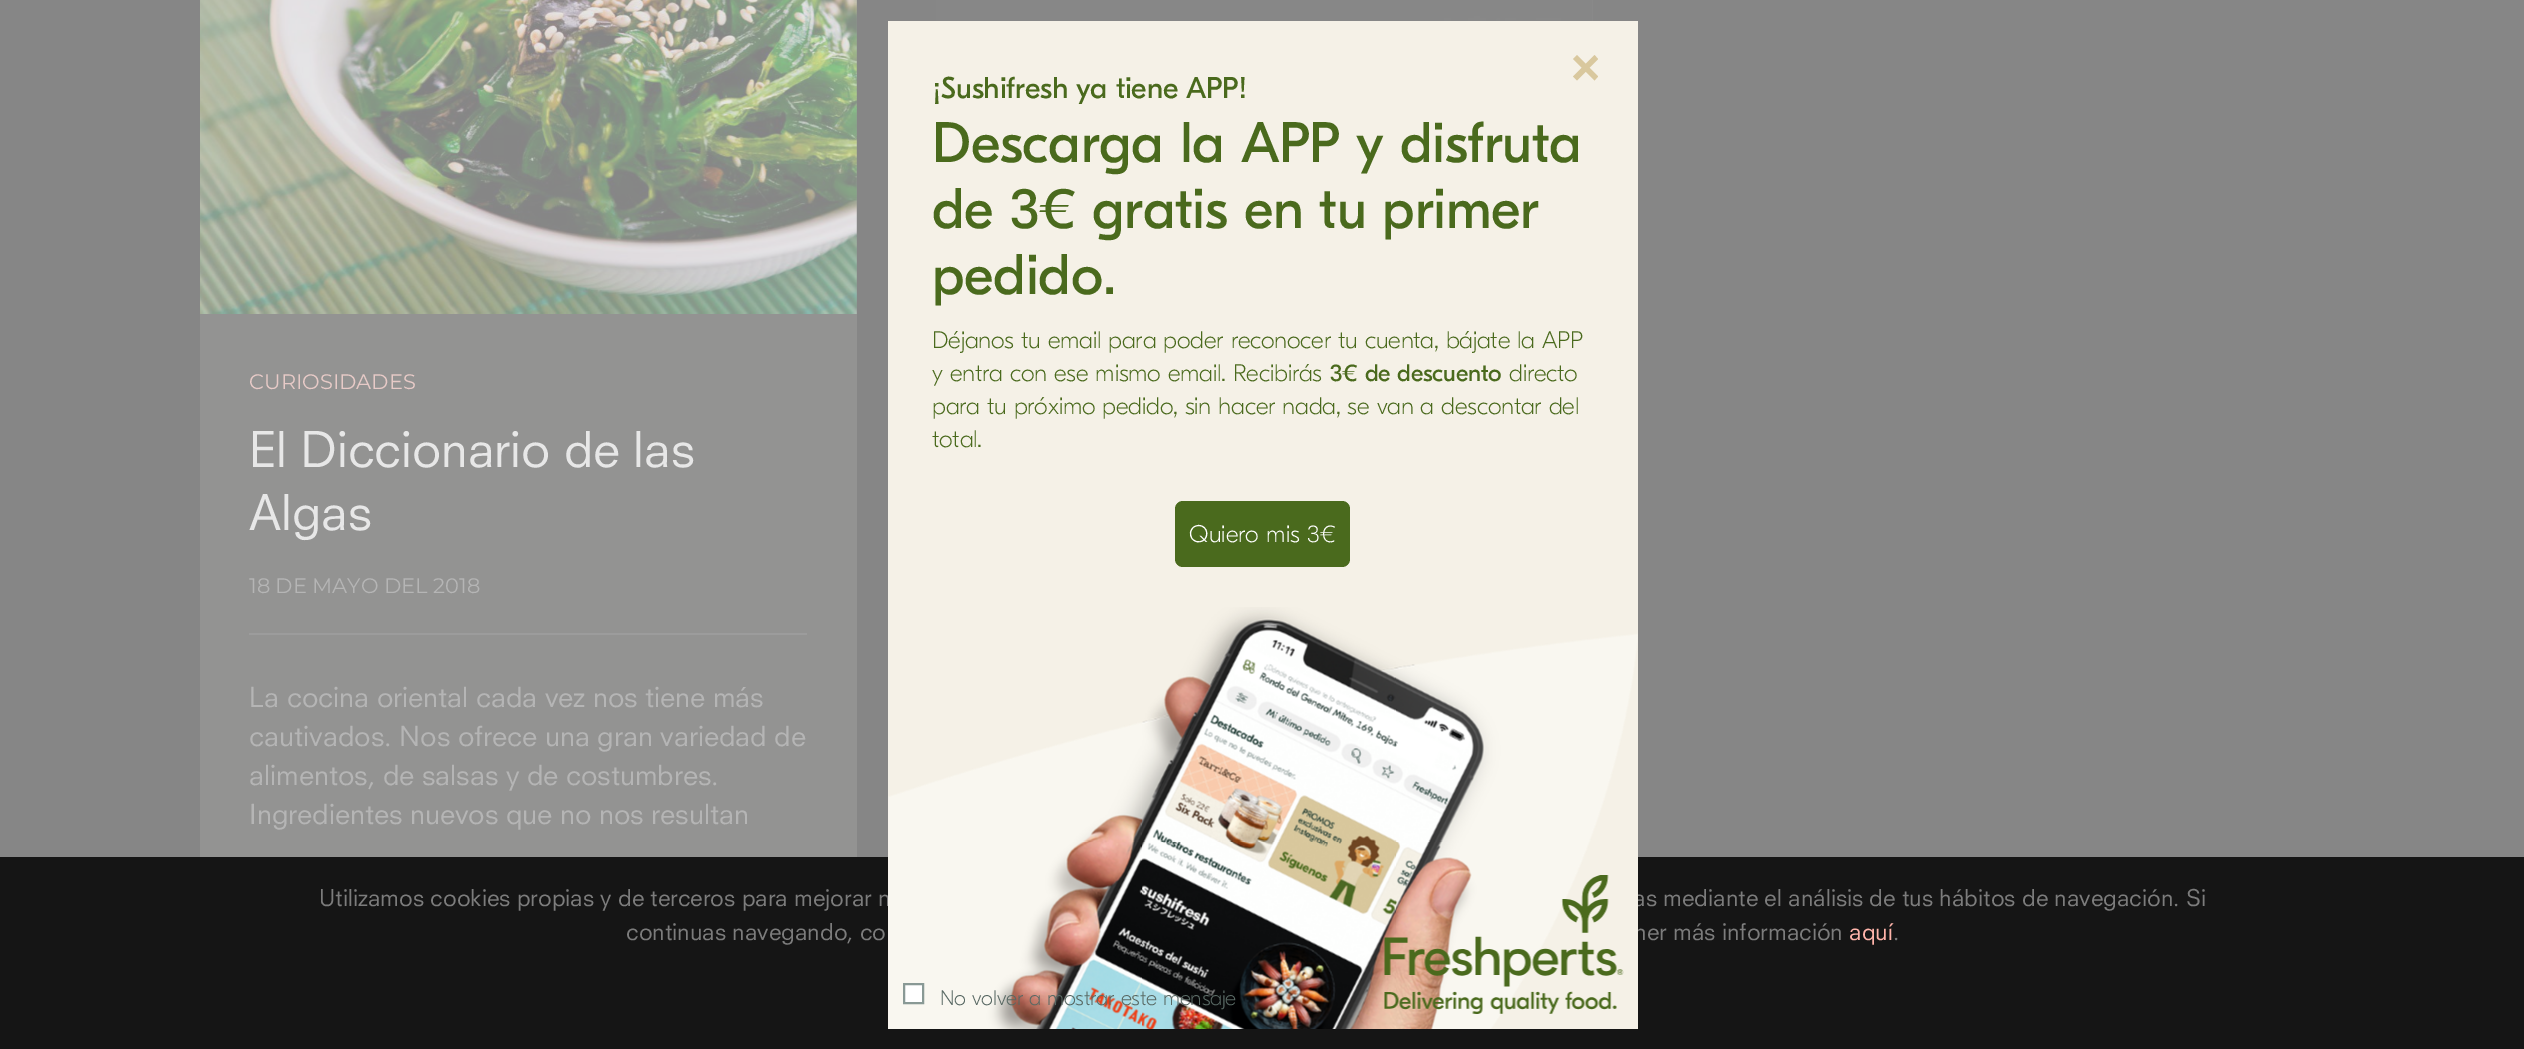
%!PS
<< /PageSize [2524 1049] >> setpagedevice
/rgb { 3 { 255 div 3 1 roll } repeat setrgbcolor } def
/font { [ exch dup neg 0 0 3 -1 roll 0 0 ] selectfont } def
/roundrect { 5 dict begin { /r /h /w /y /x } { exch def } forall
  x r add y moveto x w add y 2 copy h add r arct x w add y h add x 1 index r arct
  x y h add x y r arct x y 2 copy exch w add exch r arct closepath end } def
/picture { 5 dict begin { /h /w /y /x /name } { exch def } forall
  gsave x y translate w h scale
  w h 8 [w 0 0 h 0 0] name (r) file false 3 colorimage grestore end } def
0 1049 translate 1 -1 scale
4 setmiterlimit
134 134 134 rgb
0 0 2524 1049 rectfill
(img/1.rgb) 936 0 657 21 picture
147 147 146 rgb
200 0 657 857 rectfill
(img/2.rgb) 200 0 657 314 picture
156 156 156 rgb
249 633 558 2 rectfill
21 21 21 rgb
0 857 2524 192 rectfill
/Montserrat-Regular 21 font
231 202 199 rgb
249 389 moveto (CURIOSIDADES) show
/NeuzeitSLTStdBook-Regular 48 font
231 231 231 rgb
249 467 moveto (El Diccionario de las) show
249 530 moveto (Algas) show
/Montserrat-Regular 21 font
181 181 181 rgb
249 593 moveto (18 DE MAYO DEL 2018) show
/NeuzeitSLTStdBook-Regular 27 font
[
  [(La cocina oriental cada vez nos tiene más) 249 707]
  [(cautivados. Nos ofrece una gran variedad de) 249 746]
  [(alimentos, de salsas y de costumbres.) 249 785]
  [(Ingredientes nuevos que no nos resultan) 249 824]
] { aload pop moveto show } forall
/NeuzeitSLTStdBook-Regular 22.5 font
124 124 124 rgb
[
  [(Utilizamos cookies propias y de terceros para mejorar n) 319 906]
  [(as mediante el análisis de tus hábitos de navegación. Si) 1633 906]
  [(continuas navegando, co) 626 940]
  [(ner más información) 1634 940]
] { aload pop moveto show } forall
245 241 231 rgb
888 21 750 1008 rectfill
217 200 158 rgb
1577 55 moveto 1598 76.5 lineto 1594.5 80.5 lineto 1573 59 lineto closepath 1573 76.5 moveto 1594.5 55 lineto 1598 59 lineto 1577 80.5 lineto closepath fill
(img/3.rgb) 888 607 750 422 picture
255 255 255 rgb
904 984 moveto 923 984 lineto 923 1003 lineto 904 1003 lineto closepath gsave fill grestore
137 153 149 rgb
2 setlinewidth
stroke
/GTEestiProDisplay-Thin 21 font
89 105 100 rgb
940 1005 moveto -0.2 0 (No volver a mostrar este mensaje) ashow
(img/4.rgb) 1384 875 240 139 picture
74 106 29 rgb
1175 501 175 66 8 roundrect fill
/GTEestiProDisplay-Thin 24 font
255 255 255 rgb
1189 542 moveto (Quiero mis 3€) show
74 106 29 rgb
932 447 moveto -0.2 0 (total.) ashow
932 414 moveto -0.2 0 (para tu próximo pedido, sin hacer nada, se van a descontar del) ashow
1509 381 moveto -0.2 0 (directo) ashow
/GTEestiProDisplay-Regular 24 font
1330 381 moveto -0.2 0 (3€ de descuento) ashow
/GTEestiProDisplay-Thin 24 font
932 381 moveto -0.2 0 (y entra con ese mismo email. Recibirás) ashow
932 348 moveto -0.2 0 (Déjanos tu email para poder reconocer tu cuenta, bájate la APP) ashow
/GTEestiProDisplay-Regular 57 font
932 294 moveto -0.35 0 (pedido.) ashow
932 228 moveto -0.35 0 (de 3€ gratis en tu primer) ashow
932 162 moveto -0.35 0 (Descarga la APP y disfruta) ashow
/GTEestiProDisplay-Regular 30 font
932 98 moveto -0.25 0 (¡Sushifresh ya tiene APP!) ashow
/NeuzeitSLTStdBook-Regular 22.5 font
255 180 170 rgb
1849 940 moveto (aquí) show
124 124 124 rgb
1893 940 moveto (.) show
showpage
